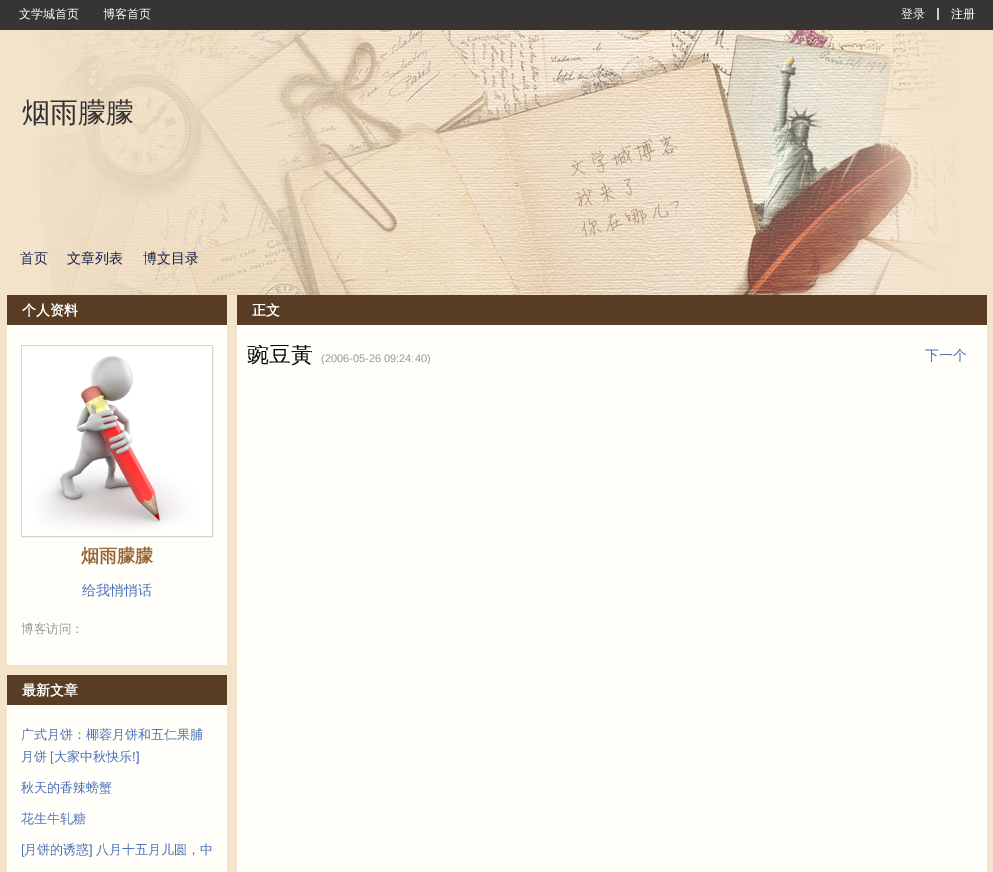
%!PS
<< /PageSize [993 872] >> setpagedevice
/rgb { 3 { 255 div 3 1 roll } repeat setrgbcolor } def
/font { [ exch dup neg 0 0 3 -1 roll 0 0 ] selectfont } def
/picture { 5 dict begin { /h /w /y /x /name } { exch def } forall
  gsave x y translate w h scale
  w h 8 [w 0 0 h 0 0] name (r) file false 3 colorimage grestore end } def
0 872 translate 1 -1 scale
4 setmiterlimit
243 227 202 rgb
0 0 993 872 rectfill
55 53 51 rgb
0 0 993 30 rectfill
208 206 204 rgb
937 8 2 12 rectfill
(img/1.rgb) 39 30 920 265 picture
88 61 36 rgb
7 295 220 30 rectfill
255 254 249 rgb
7 325 220 340 rectfill
211 215 212 rgb
21.5 345.5 191 191 rectstroke
(img/2.rgb) 22 346 190 190 picture
[
  [21 644 192 1 248 248 248]
  [7 675 220 30 88 61 36]
  [7 705 220 167 255 254 249]
  [21 772 192 1 248 248 248]
  [21 803 192 1 248 248 248]
  [21 834 192 1 248 248 248]
  [237 295 750 30 88 61 36]
  [237 325 750 547 255 254 249]
] { aload pop rgb rectfill } forall
/WenQuanYiZenHei-Medium 12 font
255 255 255 rgb
[
  [(文学城首页) 19 18]
  [(博客首页) 103 18]
  [(登录) 901 18]
  [(注册) 951 18]
] { aload pop moveto show } forall
/WenQuanYiZenHei-Medium 28 font
51 51 51 rgb
22 122 moveto (烟雨朦朦) show
/WenQuanYiZenHei-Medium 14 font
24 29 75 rgb
[
  [(首页) 20 263]
  [(文章列表) 67 263]
  [(博文目录) 143 263]
] { aload pop moveto show } forall
/WenQuanYiZenHei-Bold 14 font
255 255 255 rgb
22 315 moveto (个人资料) show
/WenQuanYiZenHei-Bold 18 font
153 102 51 rgb
81 562 moveto (烟雨朦朦) show
/WenQuanYiZenHei-Medium 14 font
78 114 184 rgb
82 595 moveto (给我悄悄话) show
/WenQuanYiZenHei-Medium 12.5 font
153 153 153 rgb
21 633 moveto (博客访问：) show
/WenQuanYiZenHei-Bold 14 font
255 255 255 rgb
22 695 moveto (最新文章) show
/WenQuanYiZenHei-Medium 13 font
78 114 184 rgb
21 739 moveto (广式月饼：椰蓉月饼和五仁果脯) show
21 761 moveto (月饼) show
/LiberationSans-Regular 13 font
50 761 moveto ([) show
/WenQuanYiZenHei-Medium 13 font
54 761 moveto (大家中秋快乐) show
/LiberationSans-Regular 13 font
132 761 moveto (!]) show
/WenQuanYiZenHei-Medium 13 font
21 792 moveto (秋天的香辣螃蟹) show
21 823 moveto (花生牛轧糖) show
/LiberationSans-Regular 13 font
21 854 moveto ([) show
/WenQuanYiZenHei-Medium 13 font
24 854 moveto (月饼的诱惑) show
/LiberationSans-Regular 13 font
89 854 moveto (]) show
/WenQuanYiZenHei-Medium 13 font
96 854 moveto (八月十五月儿圆，中) show
/WenQuanYiZenHei-Bold 14 font
255 255 255 rgb
252 315 moveto (正文) show
gsave
247 345 720 23 rectclip
/WenQuanYiZenHei-Medium 22 font
8 8 8 rgb
247 362 moveto (豌豆黃) show
grestore
/LiberationSans-Regular 11 font
153 153 153 rgb
321 362 moveto (\(2006-05-26 09:24:40\)) show
/WenQuanYiZenHei-Medium 14 font
78 114 184 rgb
925 360 moveto (下一个) show
showpage
